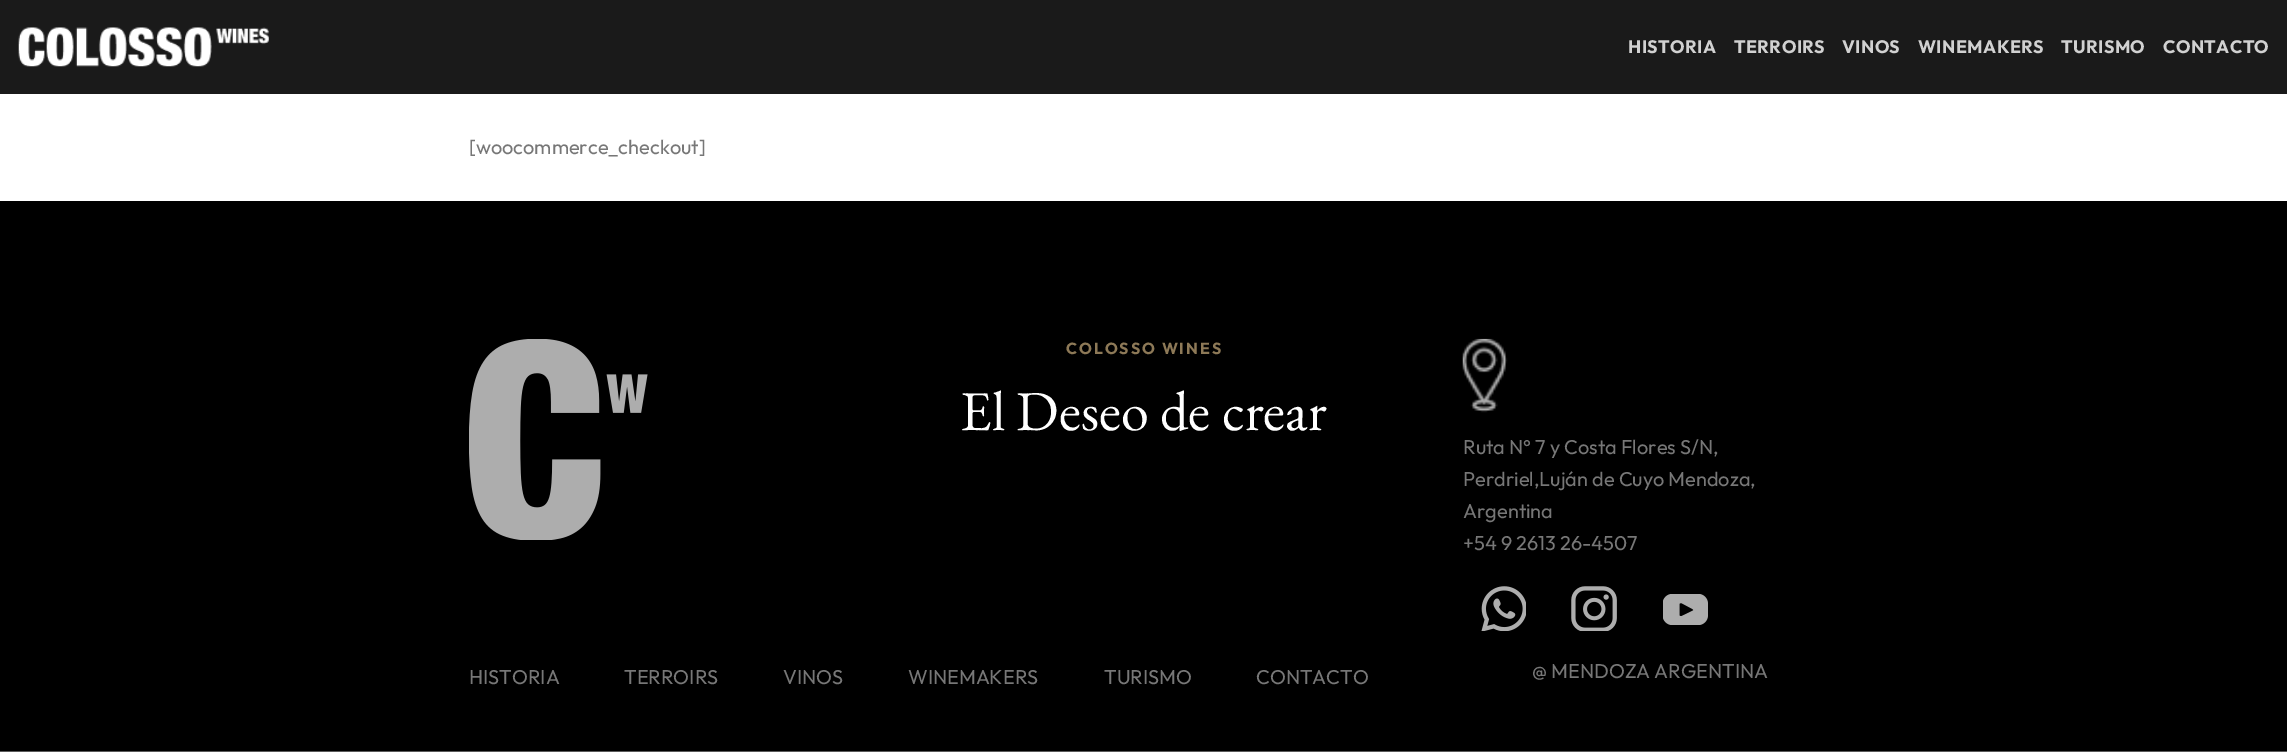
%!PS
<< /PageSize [2287 752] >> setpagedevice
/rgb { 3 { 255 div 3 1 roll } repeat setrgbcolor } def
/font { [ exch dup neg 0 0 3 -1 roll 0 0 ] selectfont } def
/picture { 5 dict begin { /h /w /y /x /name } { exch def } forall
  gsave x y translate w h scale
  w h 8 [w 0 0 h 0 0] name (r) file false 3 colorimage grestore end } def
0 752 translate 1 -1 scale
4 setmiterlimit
91 91 91 rgb
0 0 2287 752 rectfill
255 255 255 rgb
0 94 2287 107 rectfill
26 26 26 rgb
0 0 2287 94 rectfill
(img/1.rgb) 18 27 251 40 picture
0 0 0 rgb
0 201 2287 550 rectfill
(img/2.rgb) 469 339 179 201 picture
(img/3.rgb) 1462 338 46 75 picture
(img/4.rgb) 1481 586 45 45 picture
(img/5.rgb) 1571 586 46 45 picture
(img/6.rgb) 1663 594 45 31 picture
/Outfit-Bold 18 font
209 209 209 rgb
1628 53 moveto 0.4 0 (HISTORIA) ashow
1734 53 moveto 0.4 0 (TERROIRS) ashow
1842 53 moveto 0.4 0 (VINOS) ashow
1918 53 moveto 0.4 0 (WINEMAKERS) ashow
2061 53 moveto 0.4 0 (TURISMO) ashow
2163 53 moveto 0.4 0 (CONTACTO) ashow
/Outfit-Regular 20 font
119 119 119 rgb
469 154 moveto ([woocommerce_checkout]) show
/Outfit-Bold 16 font
141 121 87 rgb
1066 354 moveto 1.9 0 (COLOSSO WINES) ashow
/EBGaramond-Regular 56.25 font
255 255 255 rgb
960 430 moveto (El Deseo de crear) show
/Outfit-Regular 20 font
119 119 119 rgb
[
  [(Ruta N° 7 y Costa Flores S/N,) 1463 454]
  [(Perdriel,Luján de Cuyo Mendoza,) 1463 486]
  [(Argentina) 1463 518]
  [(+54 9 2613 26-4507) 1463 550]
  [(HISTORIA) 469 684]
  [(TERROIRS) 624 684]
  [(VINOS) 783 684]
  [(WINEMAKERS) 908 684]
  [(TURISMO) 1104 684]
  [(CONTACTO) 1256 684]
  [(@ MENDOZA ARGENTINA) 1532 678]
] { aload pop moveto show } forall
showpage
